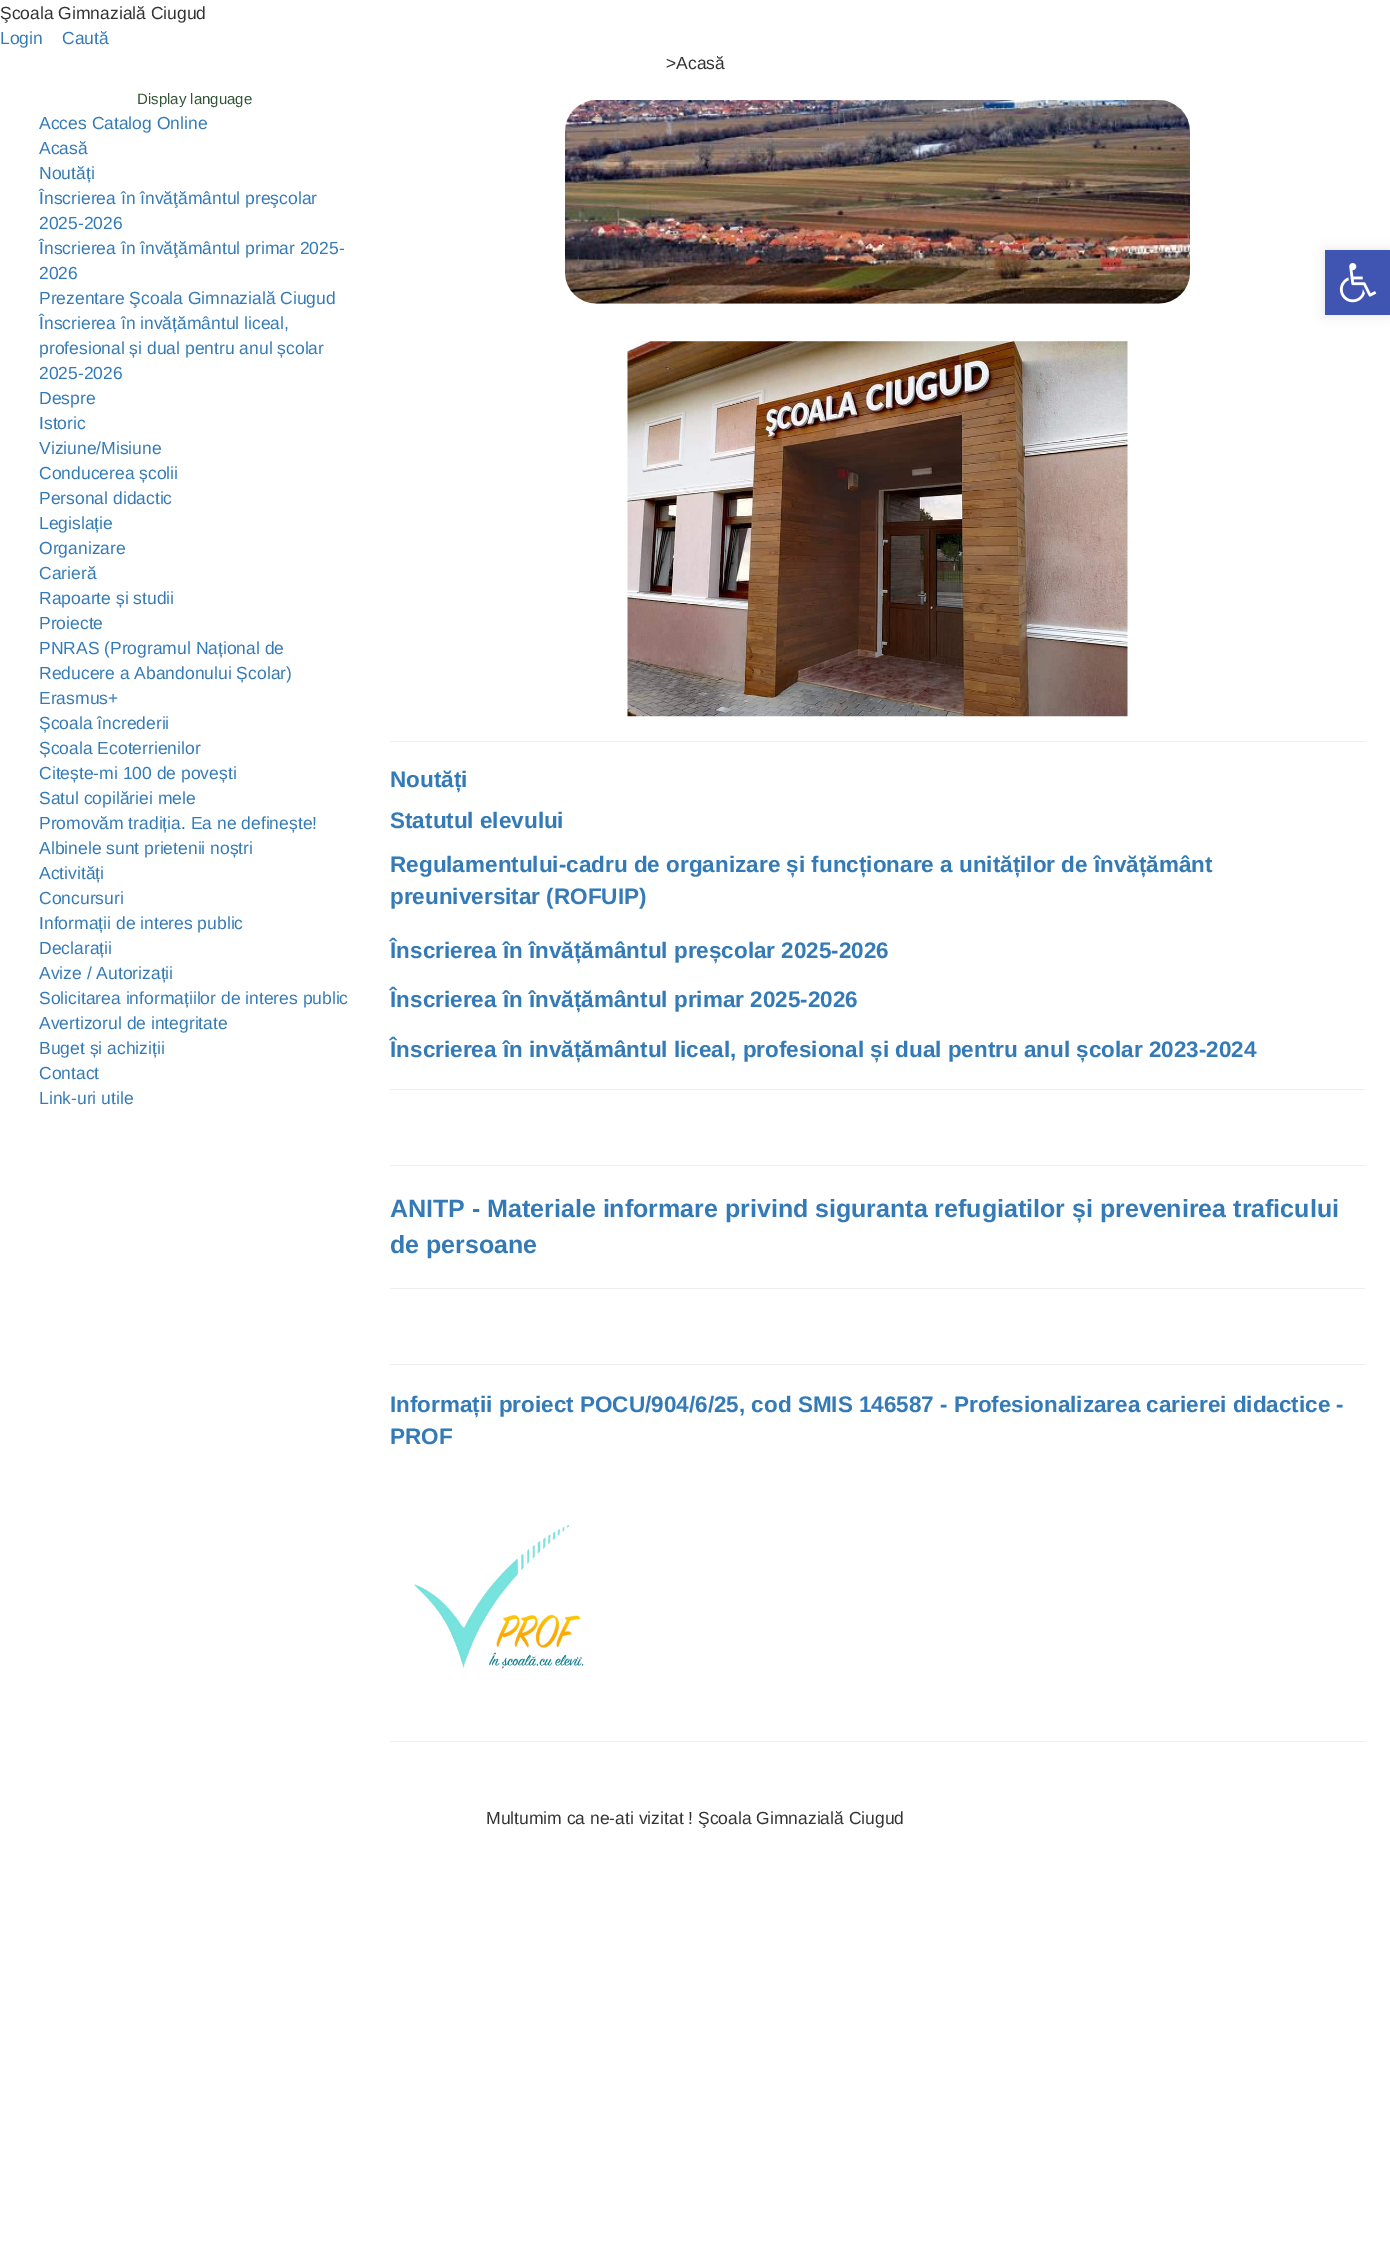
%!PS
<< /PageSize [1390 2242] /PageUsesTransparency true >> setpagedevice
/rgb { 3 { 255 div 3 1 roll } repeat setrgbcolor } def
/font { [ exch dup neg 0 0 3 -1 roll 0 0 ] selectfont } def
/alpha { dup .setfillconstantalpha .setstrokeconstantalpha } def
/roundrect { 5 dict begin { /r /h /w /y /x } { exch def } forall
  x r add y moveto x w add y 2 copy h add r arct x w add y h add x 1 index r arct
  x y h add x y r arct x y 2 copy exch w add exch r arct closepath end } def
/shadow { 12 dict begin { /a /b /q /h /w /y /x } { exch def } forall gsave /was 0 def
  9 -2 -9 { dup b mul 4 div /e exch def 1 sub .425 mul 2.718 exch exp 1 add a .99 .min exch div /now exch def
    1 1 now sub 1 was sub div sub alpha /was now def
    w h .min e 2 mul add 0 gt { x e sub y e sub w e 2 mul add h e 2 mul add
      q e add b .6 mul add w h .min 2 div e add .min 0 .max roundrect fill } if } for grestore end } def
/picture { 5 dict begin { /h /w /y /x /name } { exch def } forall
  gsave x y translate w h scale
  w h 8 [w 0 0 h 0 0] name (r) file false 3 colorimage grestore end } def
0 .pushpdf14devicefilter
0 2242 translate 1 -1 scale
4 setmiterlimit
255 255 255 rgb
0 0 1390 2242 rectfill
(img/1.rgb) 565 100 625 204 picture
(img/2.rgb) 627 341 501 376 picture
[
  [390 741 975 1 238 238 238]
  [390 1089 975 1 238 238 238]
  [390 1165 975 1 238 238 238]
  [390 1288 975 1 238 238 238]
  [390 1364 975 1 238 238 238]
] { aload pop rgb rectfill } forall
(img/3.rgb) 414 1524 170 145 picture
390 1741 975 1 rectfill
0 0 0 rgb
1325 250 65 65 0 6 0.1 shadow
64 84 178 rgb
1325 250 65 65 rectfill
(img/4.rgb) 1339 263 38 40 picture
/LiberationSans-Regular 17.5 font
51 51 51 rgb
0 19 moveto (Şcoala Gimnazială Ciugud) show
51 122 183 rgb
0 44 moveto (Login) show
62 44 moveto (Caută) show
51 51 51 rgb
666 69 moveto (>Acasă) show
/LiberationSans-Regular 15 font
49 86 54 rgb
137 104 moveto (Display language) show
/LiberationSans-Regular 17.5 font
51 122 183 rgb
[
  [(Acces Catalog Online) 39 129]
  [(Acasă) 39 154]
  [(Noutăți) 39 179]
  [(Înscrierea în învăţământul preşcolar) 39 204]
  [(2025-2026) 39 229]
  [(Înscrierea în învăţământul primar 2025-) 39 254]
  [(2026) 39 279]
  [(Prezentare Şcoala Gimnazială Ciugud) 39 304]
  [(Înscrierea în invățământul liceal,) 39 329]
  [(profesional și dual pentru anul școlar) 39 354]
  [(2025-2026) 39 379]
  [(Despre) 39 404]
  [(Istoric) 39 429]
  [(Viziune/Misiune) 39 454]
  [(Conducerea școlii) 39 479]
  [(Personal didactic) 39 504]
  [(Legislație) 39 529]
  [(Organizare) 39 554]
  [(Carieră) 39 579]
  [(Rapoarte și studii) 39 604]
  [(Proiecte) 39 629]
  [(PNRAS \(Programul Național de) 39 654]
  [(Reducere a Abandonului Școlar\)) 39 679]
  [(Erasmus+) 39 704]
  [(Școala încrederii) 39 729]
  [(Școala Ecoterrienilor) 39 754]
  [(Citește-mi 100 de povești) 39 779]
  [(Satul copilăriei mele) 39 804]
  [(Promovăm tradiția. Ea ne definește!) 39 829]
  [(Albinele sunt prietenii noștri) 39 854]
  [(Activități) 39 879]
  [(Concursuri) 39 904]
  [(Informații de interes public) 39 929]
  [(Declarații) 39 954]
  [(Avize / Autorizații) 39 979]
  [(Solicitarea informațiilor de interes public) 39 1004]
  [(Avertizorul de integritate) 39 1029]
  [(Buget și achiziții) 39 1054]
  [(Contact) 39 1079]
  [(Link-uri utile) 39 1104]
] { aload pop moveto show } forall
/LiberationSans-Bold 22.5 font
[
  [(Noutăți) 390 787]
  [(Statutul elevului) 390 828]
  [(Regulamentului-cadru de organizare și funcționare a unităților de învățământ) 390 872]
  [(preuniversitar \(ROFUIP\)) 390 904]
  [(Înscrierea în învățământul preșcolar 2025-2026) 390 958]
  [(Înscrierea în învățământul primar 2025-2026) 390 1007]
  [(Înscrierea în invățământul liceal, profesional și dual pentru anul școlar 2023-2024) 390 1057]
] { aload pop moveto show } forall
/LiberationSans-Bold 25 font
390 1217 moveto (ANITP - Materiale informare privind siguranta refugiatilor și prevenirea traficului) show
390 1253 moveto (de persoane) show
/LiberationSans-Bold 22.5 font
390 1412 moveto (Informații proiect POCU/904/6/25, cod SMIS 146587 - Profesionalizarea carierei didactice -) show
390 1444 moveto (PROF) show
/LiberationSans-Regular 17.5 font
51 51 51 rgb
486 1824 moveto (Multumim ca ne-ati vizitat ! Şcoala Gimnazială Ciugud) show
.poppdf14devicefilter showpage
